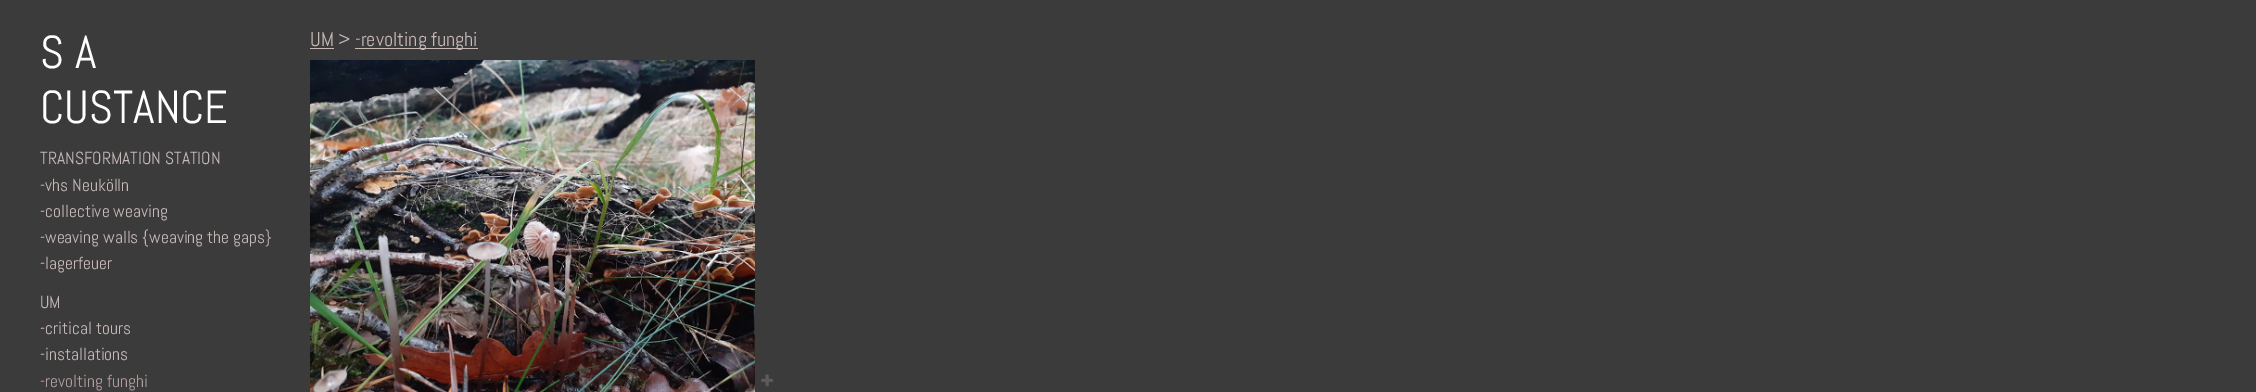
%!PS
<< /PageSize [2256 392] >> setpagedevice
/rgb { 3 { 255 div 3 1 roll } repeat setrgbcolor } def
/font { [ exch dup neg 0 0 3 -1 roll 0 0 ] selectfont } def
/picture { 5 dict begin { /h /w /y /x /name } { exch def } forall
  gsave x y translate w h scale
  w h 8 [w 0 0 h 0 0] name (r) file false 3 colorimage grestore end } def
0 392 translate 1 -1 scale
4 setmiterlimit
59 59 59 rgb
0 0 2256 392 rectfill
199 184 184 rgb
310 48 24 1 rectfill
355 48 123 1 rectfill
(img/1.rgb) 310 60 445 332 picture
(img/2.rgb) 761 374 12 13 picture
/Abel-Regular 46.25 font
255 255 255 rgb
40 68 moveto (S A) show
40 123 moveto (CUSTANCE) show
/Abel-Regular 17.5 font
199 184 184 rgb
[
  [(TRANSFORMATION STATION) 40 164]
  [(-vhs Neukölln) 40 191]
  [(-collective weaving) 40 217]
  [(-weaving walls {weaving the gaps}) 40 243]
  [(-lagerfeuer) 40 269]
  [(UM) 40 308]
  [(-critical tours) 40 334]
  [(-installations) 40 360]
] { aload pop moveto show } forall
177 155 155 rgb
40 387 moveto (-revolting funghi) show
/Abel-Regular 20 font
199 184 184 rgb
310 46 moveto (UM >) show
355 46 moveto (-revolting funghi) show
showpage
